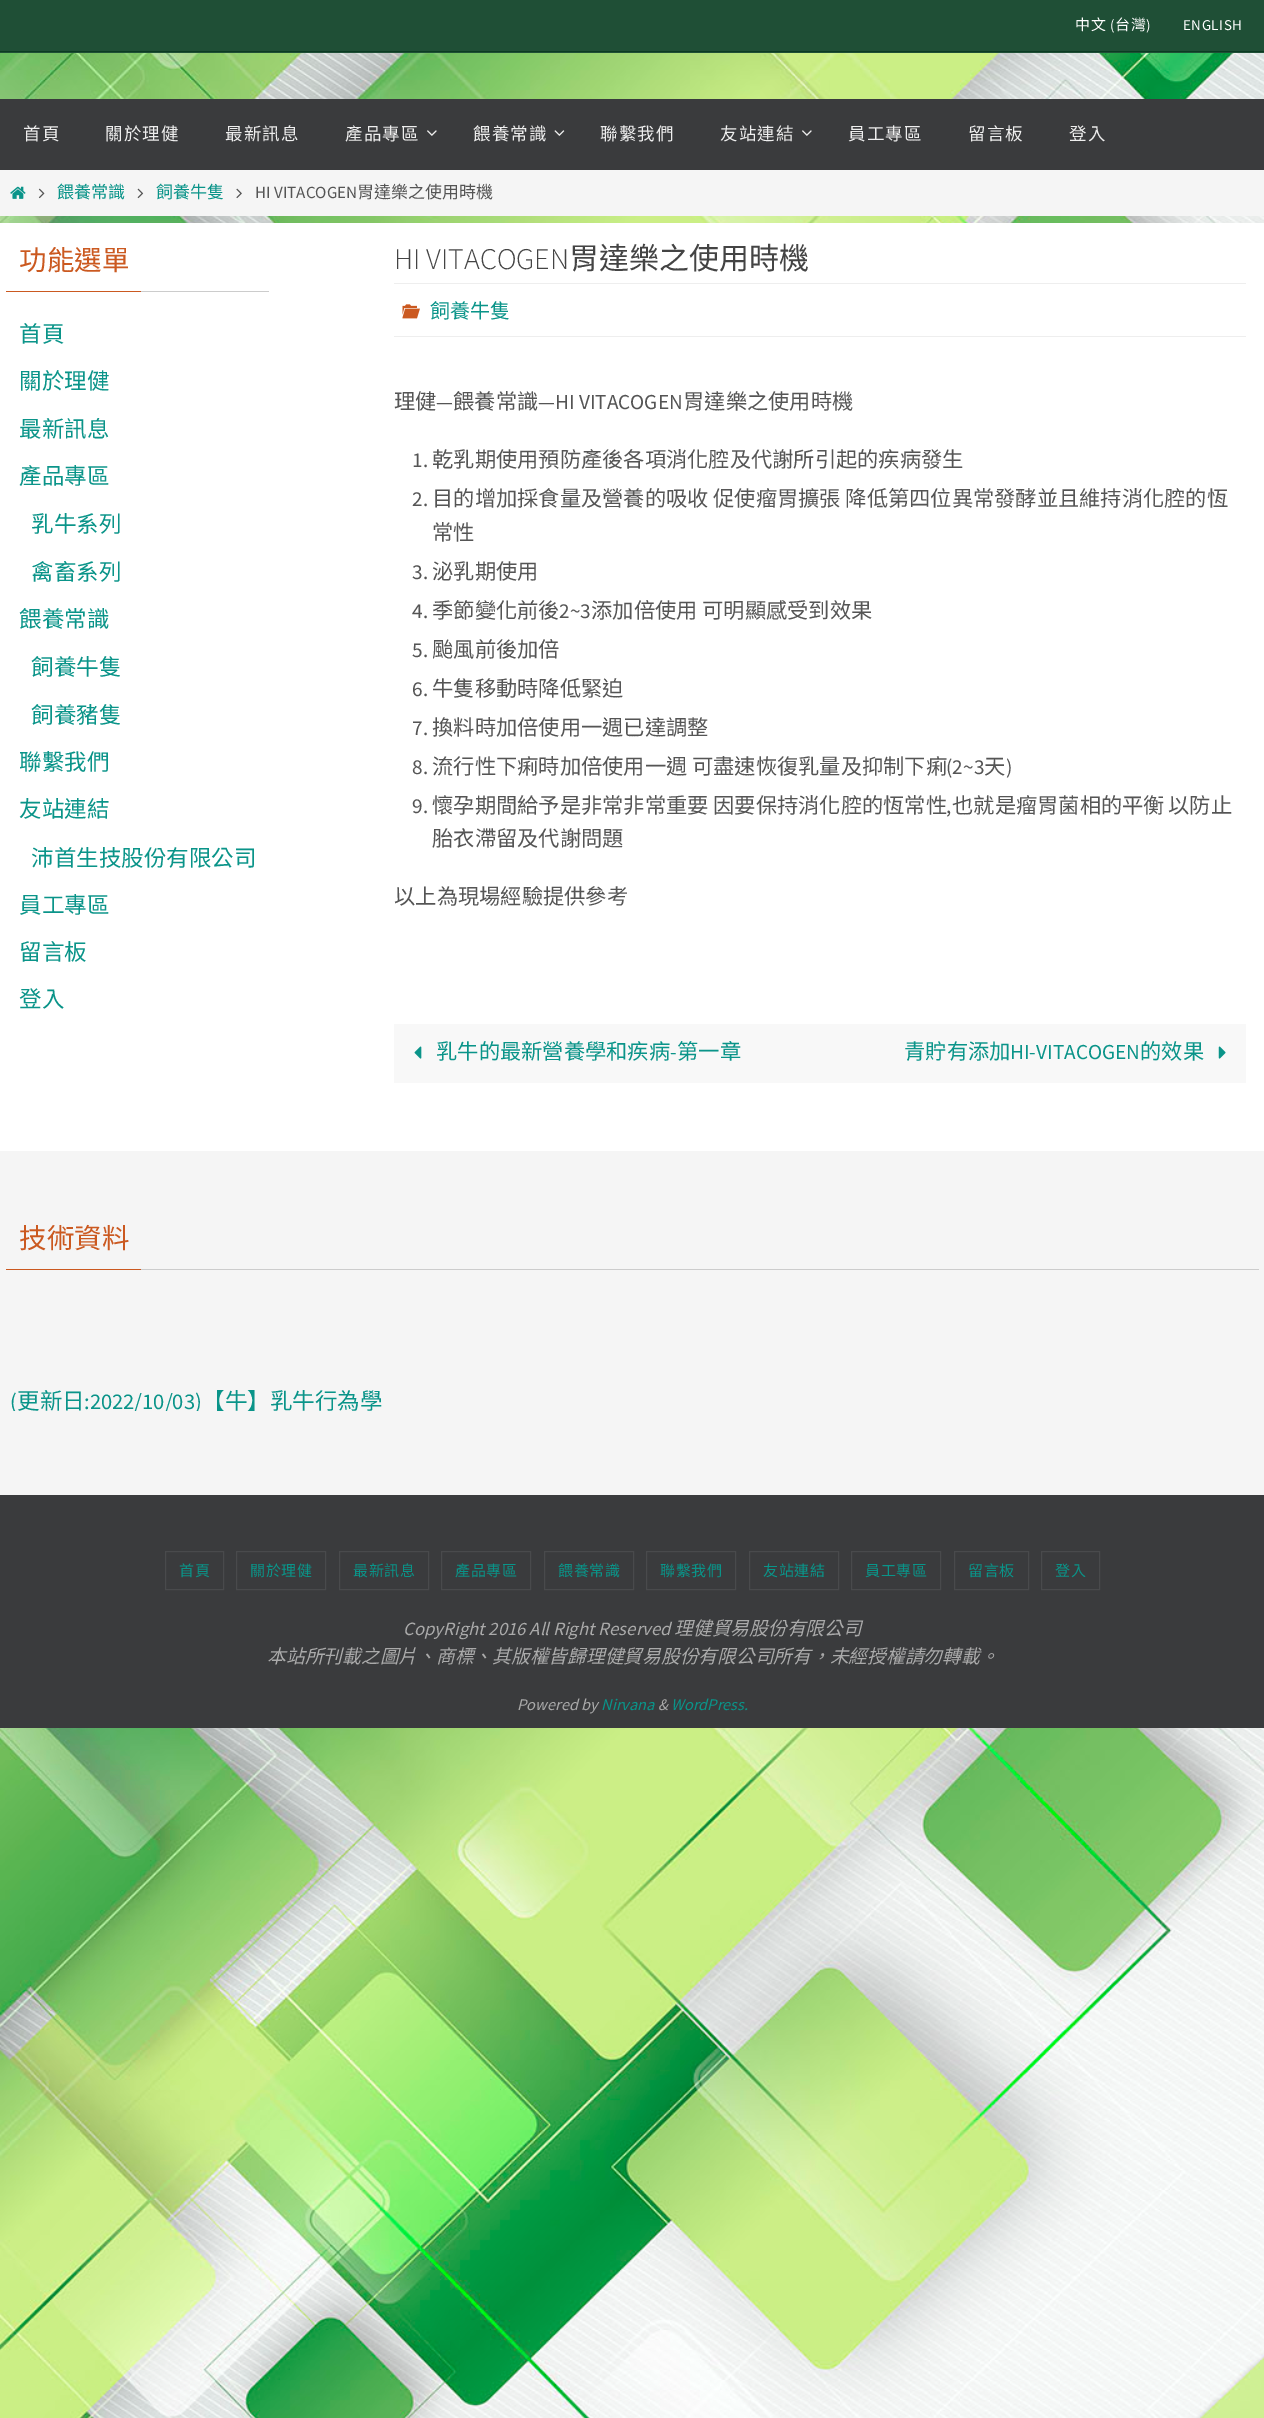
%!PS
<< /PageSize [1264 2418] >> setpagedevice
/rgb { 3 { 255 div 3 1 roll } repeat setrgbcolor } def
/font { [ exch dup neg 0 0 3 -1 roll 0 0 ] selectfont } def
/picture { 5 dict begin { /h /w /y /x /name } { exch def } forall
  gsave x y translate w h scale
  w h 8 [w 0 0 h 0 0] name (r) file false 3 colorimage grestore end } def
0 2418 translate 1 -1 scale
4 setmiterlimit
255 255 255 rgb
0 0 1264 2418 rectfill
(img/1.rgb) 0 53 1264 2365 picture
[
  [0 0 1264 53 31 79 54]
  [0 51 1264 1 11 59 34]
  [0 99 1264 71 58 59 61]
] { aload pop rgb rectfill } forall
(img/2.rgb) 427 130 10 6 picture
(img/3.rgb) 554 130 11 6 picture
(img/2.rgb) 802 130 10 6 picture
245 245 245 rgb
0 170 1264 46 rectfill
(img/4.rgb) 10 186 16 13 picture
(img/5.rgb) 38 188 7 11 picture
(img/6.rgb) 137 188 7 11 picture
(img/7.rgb) 236 188 6 11 picture
[
  [0 223 1264 928 255 255 255]
  [141 291 128 1 204 204 204]
  [6 291 135 1 203 89 32]
  [394 283 852 1 238 238 238]
  [394 336 852 1 238 238 238]
] { aload pop rgb rectfill } forall
(img/8.rgb) 402 304 18 15 picture
248 248 248 rgb
394 1024 852 59 rectfill
(img/9.rgb) 414 1046 8 13 picture
(img/10.rgb) 1218 1046 8 13 picture
[
  [0 1151 1264 344 245 245 245]
  [141 1269 1118 1 204 204 204]
  [6 1269 135 1 203 89 32]
  [0 1495 1264 233 58 59 61]
] { aload pop rgb rectfill } forall
73 74 76 rgb
165.5 1551.5 58 38 rectstroke
236.5 1551.5 89 38 rectstroke
339.5 1551.5 89 38 rectstroke
441.5 1551.5 89 38 rectstroke
544.5 1551.5 89 38 rectstroke
646.5 1551.5 89 38 rectstroke
749.5 1551.5 89 38 rectstroke
851.5 1551.5 89 38 rectstroke
954.5 1551.5 74 38 rectstroke
1041.5 1551.5 58 38 rectstroke
/NotoSansCJKTC-Regular 15 font
255 255 255 rgb
1075 30 moveto 0.5 0 (中文) ashow
/SourceSansPro-Regular 15 font
1110 30 moveto 0.5 0 (\() ashow
/NotoSansCJKTC-Regular 15 font
1115 30 moveto 0.5 0 (台灣) ashow
/SourceSansPro-Regular 15 font
1146 30 moveto 0.5 0 (\)) ashow
1183 30 moveto 0.5 0 (ENGLISH) ashow
/NotoSansCJKTC-Regular 17.5 font
238 238 238 rgb
23 140 moveto 1 0 (首頁) ashow
105 140 moveto 1 0 (關於理健) ashow
225 140 moveto 1 0 (最新訊息) ashow
345 140 moveto 1 0 (產品專區) ashow
473 140 moveto 1 0 (餵養常識) ashow
600 140 moveto 1 0 (聯繫我們) ashow
720 140 moveto 1 0 (友站連結) ashow
848 140 moveto 1 0 (員工專區) ashow
968 140 moveto 1 0 (留言板) ashow
1069 140 moveto 1 0 (登入) ashow
/NotoSansCJKTC-Regular 17 font
10 148 137 rgb
57 198 moveto (餵養常識) show
156 198 moveto (飼養牛隻) show
/SourceSansPro-Regular 17 font
85 85 85 rgb
255 198 moveto (HI VITACOGEN) show
/NotoSansCJKTC-Regular 17 font
357 198 moveto (胃達樂之使用時機) show
/NotoSansCJKTC-Regular 27.5 font
203 89 32 rgb
19 270 moveto (功能選單) show
/NotoSansCJKTC-Regular 22.5 font
10 148 137 rgb
[
  [(首頁) 19 342]
  [(關於理健) 19 389]
  [(最新訊息) 19 437]
  [(產品專區) 19 484]
  [(乳牛系列) 31 532]
  [(禽畜系列) 31 580]
  [(餵養常識) 19 627]
  [(飼養牛隻) 31 675]
  [(飼養豬隻) 31 723]
  [(聯繫我們) 19 770]
  [(友站連結) 19 817]
  [(沛首生技股份有限公司) 31 866]
  [(員工專區) 19 913]
  [(留言板) 19 960]
  [(登入) 19 1007]
] { aload pop moveto show } forall
/SourceSansPro-Light 30 font
68 68 68 rgb
394 269 moveto (HI VITACOGEN) show
/NotoSansCJKTC-Regular 30 font
569 269 moveto (胃達樂之使用時機) show
/NotoSansCJKTC-Regular 20 font
10 148 137 rgb
430 318 moveto (飼養牛隻) show
/NotoSansCJKTC-Regular 21.25 font
85 85 85 rgb
394 409 moveto (理健) show
/SourceSansPro-Regular 21.25 font
436 409 moveto (—) show
/NotoSansCJKTC-Regular 21.25 font
453 409 moveto (餵養常識) show
/SourceSansPro-Regular 21.25 font
538 409 moveto (—HI VITACOGEN) show
/NotoSansCJKTC-Regular 21.25 font
683 409 moveto (胃達樂之使用時機) show
/SourceSansPro-Regular 21.25 font
412 467 moveto (1.) show
/NotoSansCJKTC-Regular 21.25 font
432 467 moveto (乾乳期使用預防產後各項消化腔及代謝所引起的疾病發生) show
/SourceSansPro-Regular 21.25 font
412 506 moveto (2.) show
/NotoSansCJKTC-Regular 21.25 font
432 506 moveto (目的增加採食量及營養的吸收 促使瘤胃擴張 降低第四位異常發酵並且維持消化腔的恆) show
432 540 moveto (常性) show
/SourceSansPro-Regular 21.25 font
412 579 moveto (3.) show
/NotoSansCJKTC-Regular 21.25 font
432 579 moveto (泌乳期使用) show
/SourceSansPro-Regular 21.25 font
412 618 moveto (4.) show
/NotoSansCJKTC-Regular 21.25 font
432 618 moveto (季節變化前後) show
/SourceSansPro-Regular 21.25 font
559 618 moveto (2~3) show
/NotoSansCJKTC-Regular 21.25 font
591 618 moveto (添加倍使用 可明顯感受到效果) show
/SourceSansPro-Regular 21.25 font
412 657 moveto (5.) show
/NotoSansCJKTC-Regular 21.25 font
432 657 moveto (颱風前後加倍) show
/SourceSansPro-Regular 21.25 font
412 696 moveto (6.) show
/NotoSansCJKTC-Regular 21.25 font
432 696 moveto (牛隻移動時降低緊迫) show
/SourceSansPro-Regular 21.25 font
412 735 moveto (7.) show
/NotoSansCJKTC-Regular 21.25 font
432 735 moveto (換料時加倍使用一週已達調整) show
/SourceSansPro-Regular 21.25 font
412 774 moveto (8.) show
/NotoSansCJKTC-Regular 21.25 font
432 774 moveto (流行性下痢時加倍使用一週 可盡速恢復乳量及抑制下痢) show
/SourceSansPro-Regular 21.25 font
946 774 moveto (\(2~3) show
/NotoSansCJKTC-Regular 21.25 font
984 774 moveto (天) show
/SourceSansPro-Regular 21.25 font
1006 774 moveto (\)) show
412 813 moveto (9.) show
/NotoSansCJKTC-Regular 21.25 font
432 813 moveto (懷孕期間給予是非常非常重要 因要保持消化腔的恆常性) show
/SourceSansPro-Regular 21.25 font
946 813 moveto (,) show
/NotoSansCJKTC-Regular 21.25 font
[
  [(也就是瘤胃菌相的平衡) 952 813]
  [(以防止) 1168 813]
  [(胎衣滯留及代謝問題) 432 846]
  [(以上為現場經驗提供參考) 394 904]
] { aload pop moveto show } forall
10 148 137 rgb
436 1059 moveto (乳牛的最新營養學和疾病) show
/SourceSansPro-Regular 21.25 font
670 1059 moveto (-) show
/NotoSansCJKTC-Regular 21.25 font
677 1059 moveto (第一章) show
904 1059 moveto (青貯有添加) show
/SourceSansPro-Regular 21.25 font
1010 1059 moveto (HI-VITACOGEN) show
/NotoSansCJKTC-Regular 21.25 font
1140 1059 moveto (的效果) show
/NotoSansCJKTC-Regular 27.5 font
203 89 32 rgb
19 1248 moveto (技術資料) show
gsave
10 1286 1245 125 rectclip
/SourceSansPro-Regular 22.5 font
10 148 137 rgb
10 1409 moveto (\() show
grestore
/NotoSansCJKTC-Regular 22.5 font
10 148 137 rgb
17 1409 moveto (更新日) show
gsave
10 1286 1245 125 rectclip
/SourceSansPro-Regular 22.5 font
84 1409 moveto (:2022/10/03\)) show
grestore
202 1409 moveto (【牛】乳牛行為學) show
/NotoSansCJKTC-Regular 15 font
179 1576 moveto 0.5 0 (首頁) ashow
250 1576 moveto 0.5 0 (關於理健) ashow
353 1576 moveto 0.5 0 (最新訊息) ashow
455 1576 moveto 0.5 0 (產品專區) ashow
558 1576 moveto 0.5 0 (餵養常識) ashow
660 1576 moveto 0.5 0 (聯繫我們) ashow
763 1576 moveto 0.5 0 (友站連結) ashow
865 1576 moveto 0.5 0 (員工專區) ashow
968 1576 moveto 0.5 0 (留言板) ashow
1055 1576 moveto 0.5 0 (登入) ashow
/SourceSansPro-Italic 18.75 font
170 170 170 rgb
403 1635 moveto (CopyRight 2016 All Right Reserved) show
/NotoSansCJKTC-Italic 18.75 font
674 1635 moveto (理健貿易股份有限公司) show
267 1663 moveto (本站所刊載之圖片、商標、其版權皆歸理健貿易股份有限公司所有，未經授權請勿轉載。) show
/SourceSansPro-Italic 16.25 font
517 1710 moveto (Powered by) show
10 148 137 rgb
601 1710 moveto (Nirvana) show
170 170 170 rgb
658 1710 moveto (&) show
10 148 137 rgb
671 1710 moveto (WordPress.) show
showpage
